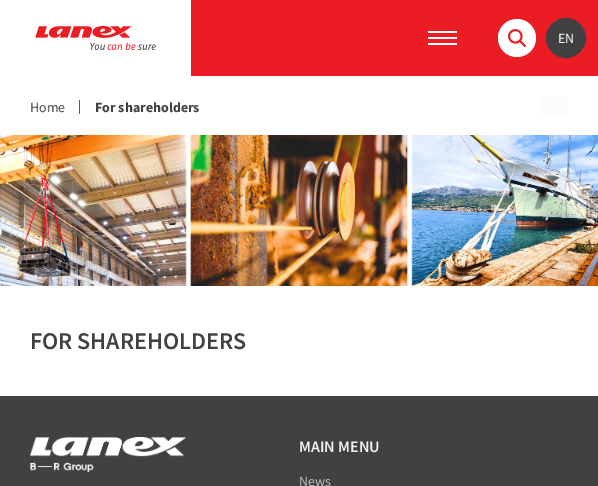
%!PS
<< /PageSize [598 486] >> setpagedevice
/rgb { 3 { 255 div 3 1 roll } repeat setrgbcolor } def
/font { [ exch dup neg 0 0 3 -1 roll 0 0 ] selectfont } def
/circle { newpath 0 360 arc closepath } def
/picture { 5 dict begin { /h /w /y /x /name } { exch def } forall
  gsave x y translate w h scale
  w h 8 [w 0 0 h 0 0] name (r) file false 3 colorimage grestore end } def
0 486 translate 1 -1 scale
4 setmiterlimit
255 255 255 rgb
0 0 598 486 rectfill
236 28 36 rgb
191 0 407 76 rectfill
(img/1.rgb) 35 26 121 24 picture
[
  [428 37 29 2 255 255 255]
  [428 31 29 2 255 255 255]
  [428 43 29 2 255 255 255]
] { aload pop rgb rectfill } forall
517 38 19 circle fill
(img/2.rgb) 508 29 18 18 picture
65 64 66 rgb
566 38 19.5 circle gsave fill grestore
stroke
236 28 36 rgb
79 100 1 14 rectfill
gsave 541 97 moveto 568 97 lineto 568 115 lineto 541 115 lineto closepath clip newpath
<< /ShadingType 2 /ColorSpace /DeviceRGB /Coords [528 106 568 106] /Extend [true true] /Function << /FunctionType 3 /Domain [0 1] /Functions [<< /FunctionType 2 /Domain [0 1] /C0 [1 1 1] /C1 [0.984 0.984 0.984] /N 1 >> << /FunctionType 2 /Domain [0 1] /C0 [0.984 0.984 0.984] /C1 [0.984 0.984 0.984] /N 1 >>] /Bounds [0.5] /Encode [0 1 0 1] >> >> shfill grestore
(img/3.rgb) 0 135 598 151 picture
65 64 66 rgb
0 396 598 90 rectfill
(img/4.rgb) 30 437 156 35 picture
/SourceSansPro-Regular 14 font
255 255 255 rgb
558 43 moveto (EN) show
65 64 66 rgb
30 112 moveto (Home) show
/SourceSansPro-Bold 14 font
95 112 moveto (For shareholders) show
/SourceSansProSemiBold-SemiBold 24 font
30 349 moveto (FOR SHAREHOLDERS) show
/SourceSansProSemiBold-SemiBold 16 font
241 242 242 rgb
299 452 moveto (MAIN MENU) show
/SourceSansPro-Regular 14 font
188 190 192 rgb
299 486 moveto (News) show
showpage
